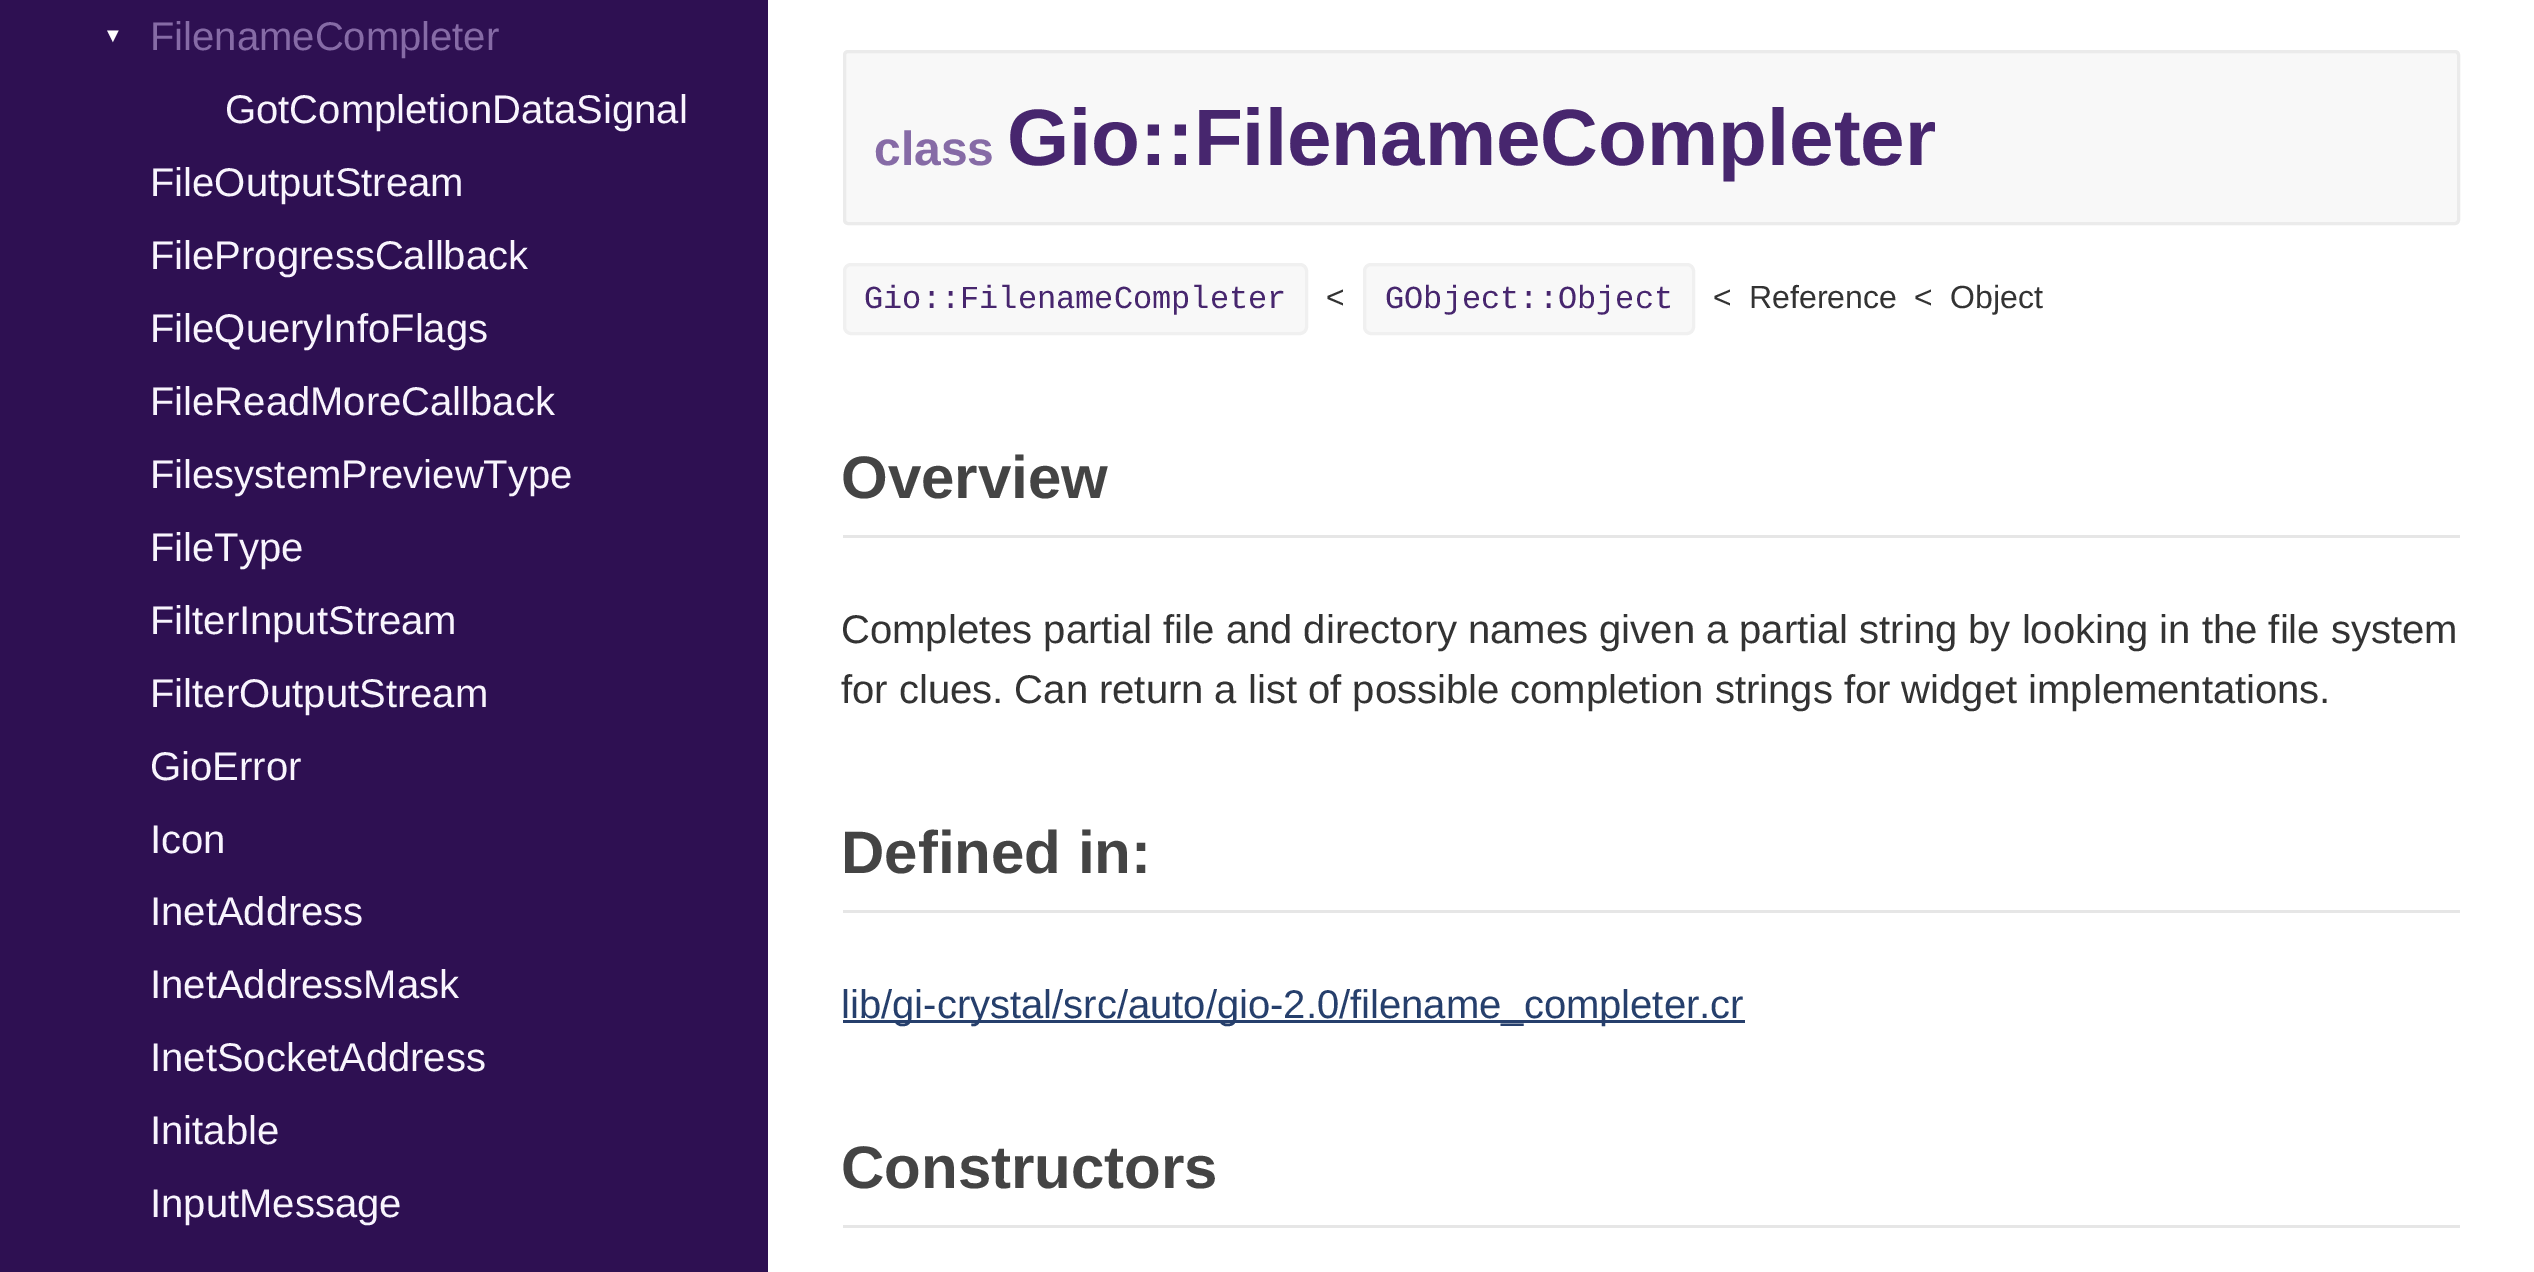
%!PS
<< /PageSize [2534 1272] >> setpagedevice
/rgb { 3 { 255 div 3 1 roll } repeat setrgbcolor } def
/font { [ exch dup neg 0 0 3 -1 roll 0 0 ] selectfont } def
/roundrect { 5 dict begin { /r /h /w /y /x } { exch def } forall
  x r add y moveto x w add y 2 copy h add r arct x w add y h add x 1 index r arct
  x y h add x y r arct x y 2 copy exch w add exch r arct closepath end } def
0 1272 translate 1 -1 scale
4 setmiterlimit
255 255 255 rgb
0 0 2534 1272 rectfill
46 16 82 rgb
0 0 768 1272 rectfill
248 248 248 rgb
844.5 51.5 1614 172 3.5 roundrect gsave fill grestore
235 235 235 rgb
3 setlinewidth
stroke
248 248 248 rgb
844.5 264.5 462 69 6.5 roundrect gsave fill grestore
240 240 240 rgb
stroke
248 248 248 rgb
1364.5 264.5 329 69 6.5 roundrect gsave fill grestore
240 240 240 rgb
stroke
[
  [843 535 1617 3 230 230 230]
  [843 910 1617 3 230 230 230]
  [843 1020 902 3 38 63 108]
  [843 1225 1617 3 230 230 230]
] { aload pop rgb rectfill } forall
/LiberationSans-Regular 20 font
255 255 255 rgb
103 42 moveto (▼) show
/LiberationSans-Regular 40 font
134 107 166 rgb
150 50 moveto (FilenameCompleter) show
248 244 253 rgb
[
  [(GotCompletionDataSignal) 225 123]
  [(FileOutputStream) 150 196]
  [(FileProgressCallback) 150 269]
  [(FileQueryInfoFlags) 150 342]
  [(FileReadMoreCallback) 150 415]
  [(FilesystemPreviewType) 150 488]
  [(FileType) 150 561]
  [(FilterInputStream) 150 634]
  [(FilterOutputStream) 150 707]
  [(GioError) 150 780]
  [(Icon) 150 853]
  [(InetAddress) 150 925]
  [(InetAddressMask) 150 998]
  [(InetSocketAddress) 150 1071]
  [(Initable) 150 1144]
  [(InputMessage) 150 1217]
] { aload pop moveto show } forall
/LiberationSans-Bold 48 font
134 107 166 rgb
874 165 moveto (class) show
/LiberationSans-Bold 80 font
71 38 110 rgb
1007 165 moveto (Gio::FilenameCompleter) show
/LiberationMono-Regular 32 font
864 308 moveto (Gio::FilenameCompleter) show
/LiberationSans-Regular 32 font
51 51 51 rgb
1326 308 moveto (<) show
/LiberationMono-Regular 32 font
71 38 110 rgb
1385 308 moveto (GObject::Object) show
/LiberationSans-Regular 32 font
51 51 51 rgb
[
  [(<) 1713 308]
  [(Reference) 1749 308]
  [(<) 1914 308]
  [(Object) 1950 308]
] { aload pop moveto show } forall
/LiberationSans-Bold 60 font
68 68 68 rgb
841 498 moveto (Overview) show
/LiberationSans-Regular 40 font
51 51 51 rgb
841 643 moveto (Completes partial file and directory names given a partial string by looking in the file system) show
841 703 moveto (for clues. Can return a list of possible completion strings for widget implementations.) show
/LiberationSans-Bold 60 font
68 68 68 rgb
841 873 moveto (Defined in:) show
/LiberationSans-Regular 40 font
38 63 108 rgb
841 1018 moveto (lib/gi-crystal/src/auto/gio-2.0/filename_completer.cr) show
/LiberationSans-Bold 60 font
68 68 68 rgb
841 1188 moveto (Constructors) show
showpage
